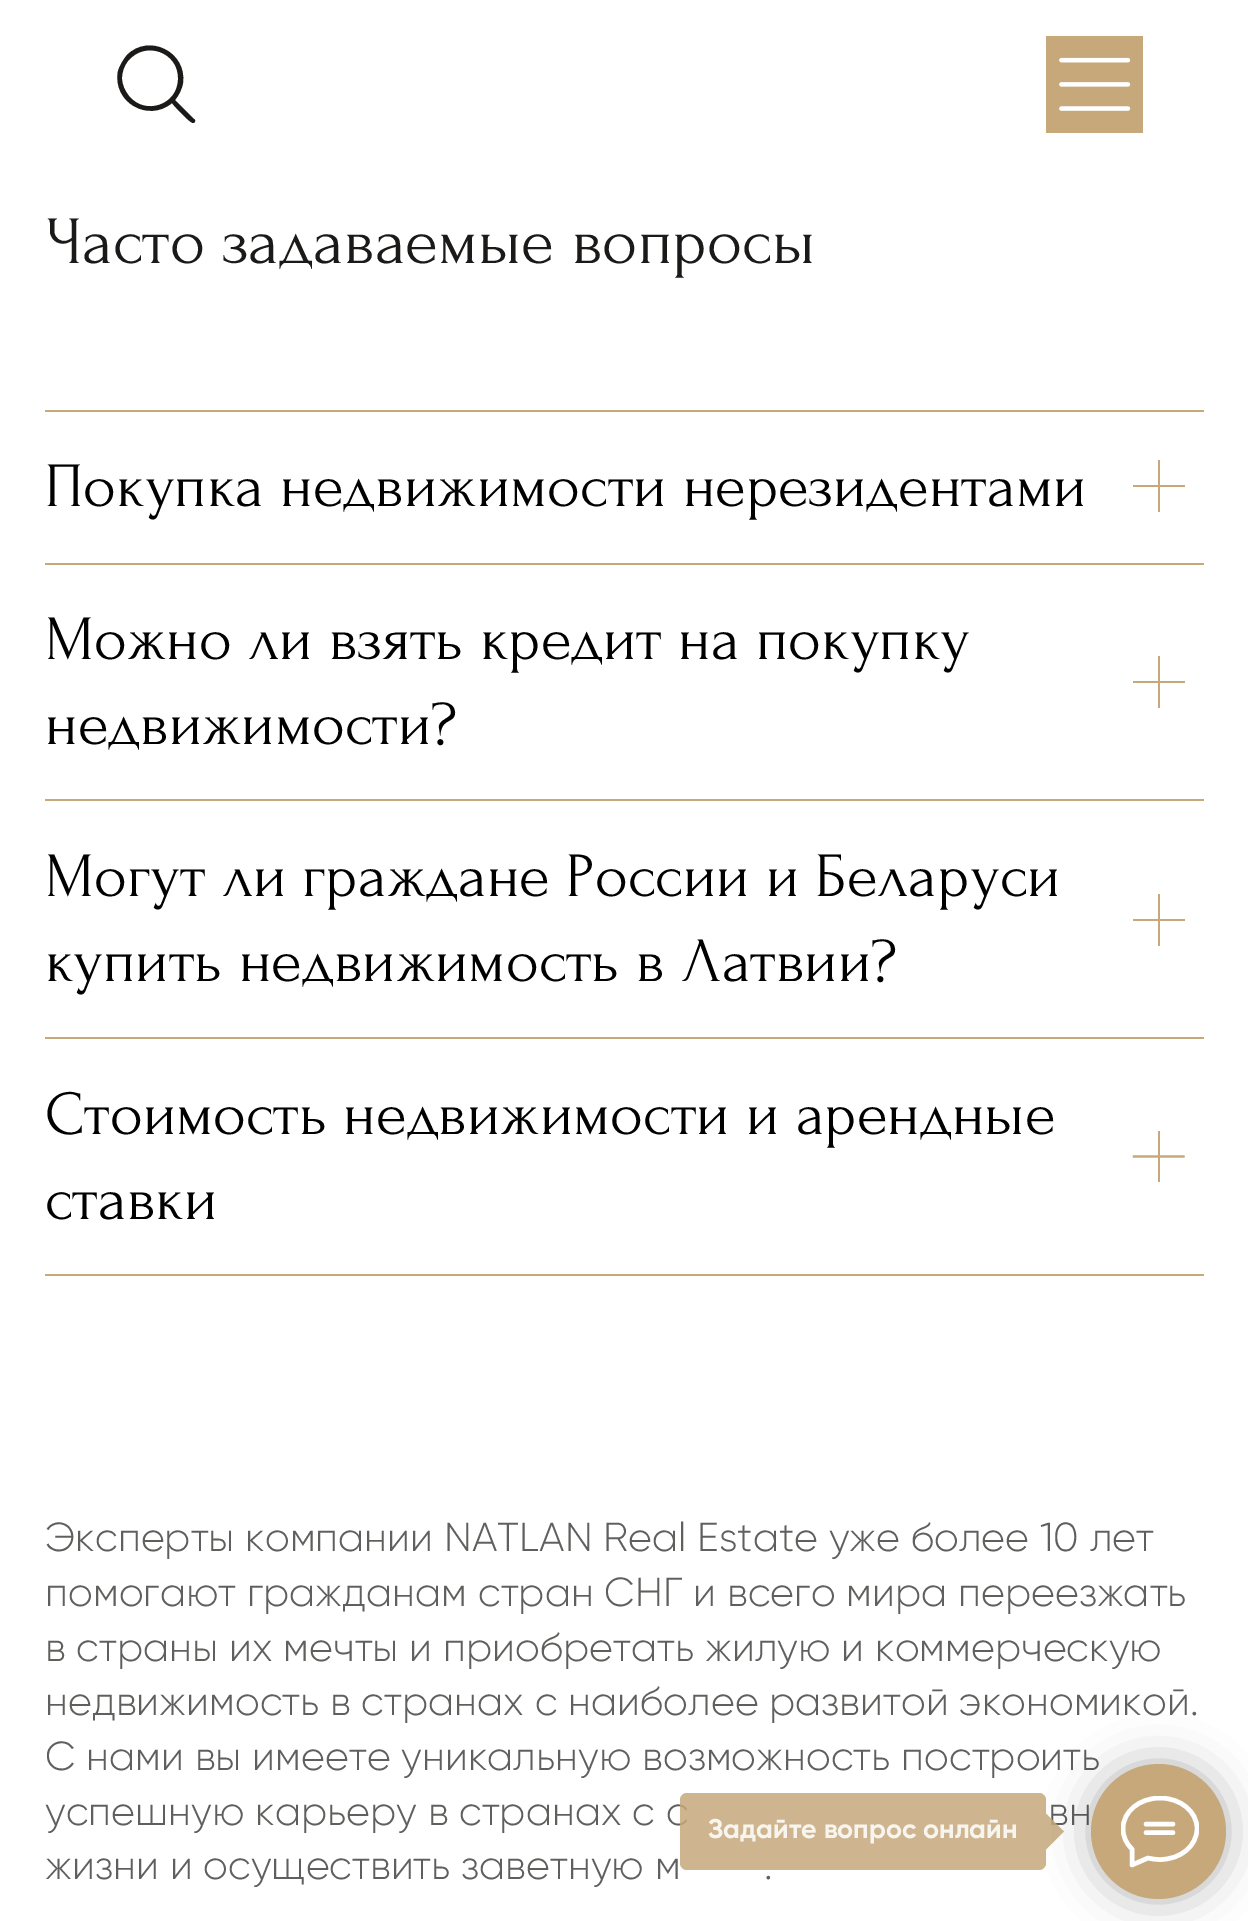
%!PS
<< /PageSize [1248 1921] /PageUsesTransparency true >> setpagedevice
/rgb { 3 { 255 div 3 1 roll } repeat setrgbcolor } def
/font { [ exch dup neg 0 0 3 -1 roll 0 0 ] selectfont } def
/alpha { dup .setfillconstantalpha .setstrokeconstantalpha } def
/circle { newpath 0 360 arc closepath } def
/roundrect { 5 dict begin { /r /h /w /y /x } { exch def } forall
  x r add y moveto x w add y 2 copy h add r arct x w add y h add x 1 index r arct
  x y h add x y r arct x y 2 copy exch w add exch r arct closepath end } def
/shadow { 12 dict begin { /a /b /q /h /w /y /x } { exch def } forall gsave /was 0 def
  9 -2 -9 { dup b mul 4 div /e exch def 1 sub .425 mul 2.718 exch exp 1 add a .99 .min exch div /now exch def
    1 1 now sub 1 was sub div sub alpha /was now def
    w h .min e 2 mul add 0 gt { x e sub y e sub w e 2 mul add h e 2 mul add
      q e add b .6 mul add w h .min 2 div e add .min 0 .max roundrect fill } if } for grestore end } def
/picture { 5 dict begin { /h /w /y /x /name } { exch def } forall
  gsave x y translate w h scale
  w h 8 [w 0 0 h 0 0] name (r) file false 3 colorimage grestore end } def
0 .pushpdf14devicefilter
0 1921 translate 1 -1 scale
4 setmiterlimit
255 255 255 rgb
0 0 1248 1921 rectfill
27 26 25 rgb
194 119 moveto 175 100 lineto 179 95 182 89 183 83 curveto 187 52 149 33 127 55 curveto 123 60 120 65 118 71 curveto 112 102 148 123 172 103 curveto 174 106 190 123 193 123 curveto 195 123 196 120 194 119 curveto closepath 122 78 moveto 122 72 124 66 128 61 curveto 145 40 179 52 178 79 curveto 178 105 145 116 129 96 curveto 125 91 122 85 122 78 curveto closepath fill
(img/1.rgb) 1046 36 97 97 picture
[
  [45 410 1159 2 198 168 123]
  [1133 485 52 2 198 168 123]
  [1158 460 2 52 198 168 123]
  [45 563 1159 2 198 168 123]
  [1133 681 52 2 198 168 123]
  [1158 656 2 52 198 168 123]
  [45 799 1159 2 198 168 123]
  [1133 919 52 2 198 168 123]
  [1158 894 2 52 198 168 123]
  [45 1037 1159 2 198 168 123]
] { aload pop rgb rectfill } forall
2.2 setlinewidth
2 setlinecap
1134 1156.5 moveto 1183.5 1156.5 lineto stroke
1158 1131 2 51 rectfill
45 1274 1159 2 rectfill
/Forum-Regular 67.5 font
27 26 25 rgb
45 263 moveto (Часто задаваемые вопросы) show
/Forum-Regular 63 font
0 0 0 rgb
[
  [(Покупка недвижимости нерезидентами) 45 506]
  [(Можно ли взять кредит на покупку) 45 659]
  [(недвижимости?) 45 744]
  [(Могут ли граждане России и Беларуси) 45 896]
  [(купить недвижимость в Латвии?) 45 981]
  [(Стоимость недвижимости и арендные) 45 1134]
  [(ставки) 45 1219]
] { aload pop moveto show } forall
/Gilroy-Light 40.5 font
95 95 94 rgb
[
  [(Эксперты компании NATLAN Real Estate уже более 10 лет) 45 1551]
  [(помогают гражданам стран СНГ и всего мира переезжать) 45 1606]
  [(в страны их мечты и приобретать жилую и коммерческую) 45 1661]
  [(недвижимость в странах с наиболее развитой экономикой.) 45 1715]
  [(С нами вы имеете уникальную возможность построить) 45 1770]
  [(успешную карьеру в странах с с) 45 1825]
  [(вн) 1048 1825]
  [(жизни и осуществить заветную м) 45 1879]
  [(.) 764 1879]
] { aload pop moveto show } forall
0.85 alpha
198 168 123 rgb
680 1793 366 77 7 roundrect fill
/Gilroy-Bold 27 font
1 alpha
248 244 238 rgb
708 1838 moveto (Задайте вопрос онлайн) show
0.85 alpha
198 168 123 rgb
1046 1849.5 moveto 1046 1813.5 lineto 1064 1831.5 lineto closepath fill
1 alpha
0 0 0 rgb
1091 1764 135 135 67.5 22.5 0.3 shadow
198 168 123 rgb
1158.5 1831.5 67.5 circle fill
gsave
1121 1796 78 72 rectclip
255 255 255 rgb
4.5 setlinewidth
1 setlinecap
1 setlinejoin
1146 1824 moveto 1173 1824 lineto 1146 1832.5 moveto 1173 1832.5 lineto 1131.5 1848.5 moveto 1126 1843 1123 1836.5 1123 1828.5 curveto 1123 1811.5 1139.5 1798 1160 1798 curveto 1180.5 1798 1197 1811.5 1197 1828.5 curveto 1197 1846 1180.5 1859.5 1160 1859.5 curveto 1155.5 1859.5 1151.5 1859 1148 1858 curveto 1132 1865 lineto 1132 1849 lineto closepath stroke
grestore
.poppdf14devicefilter showpage
